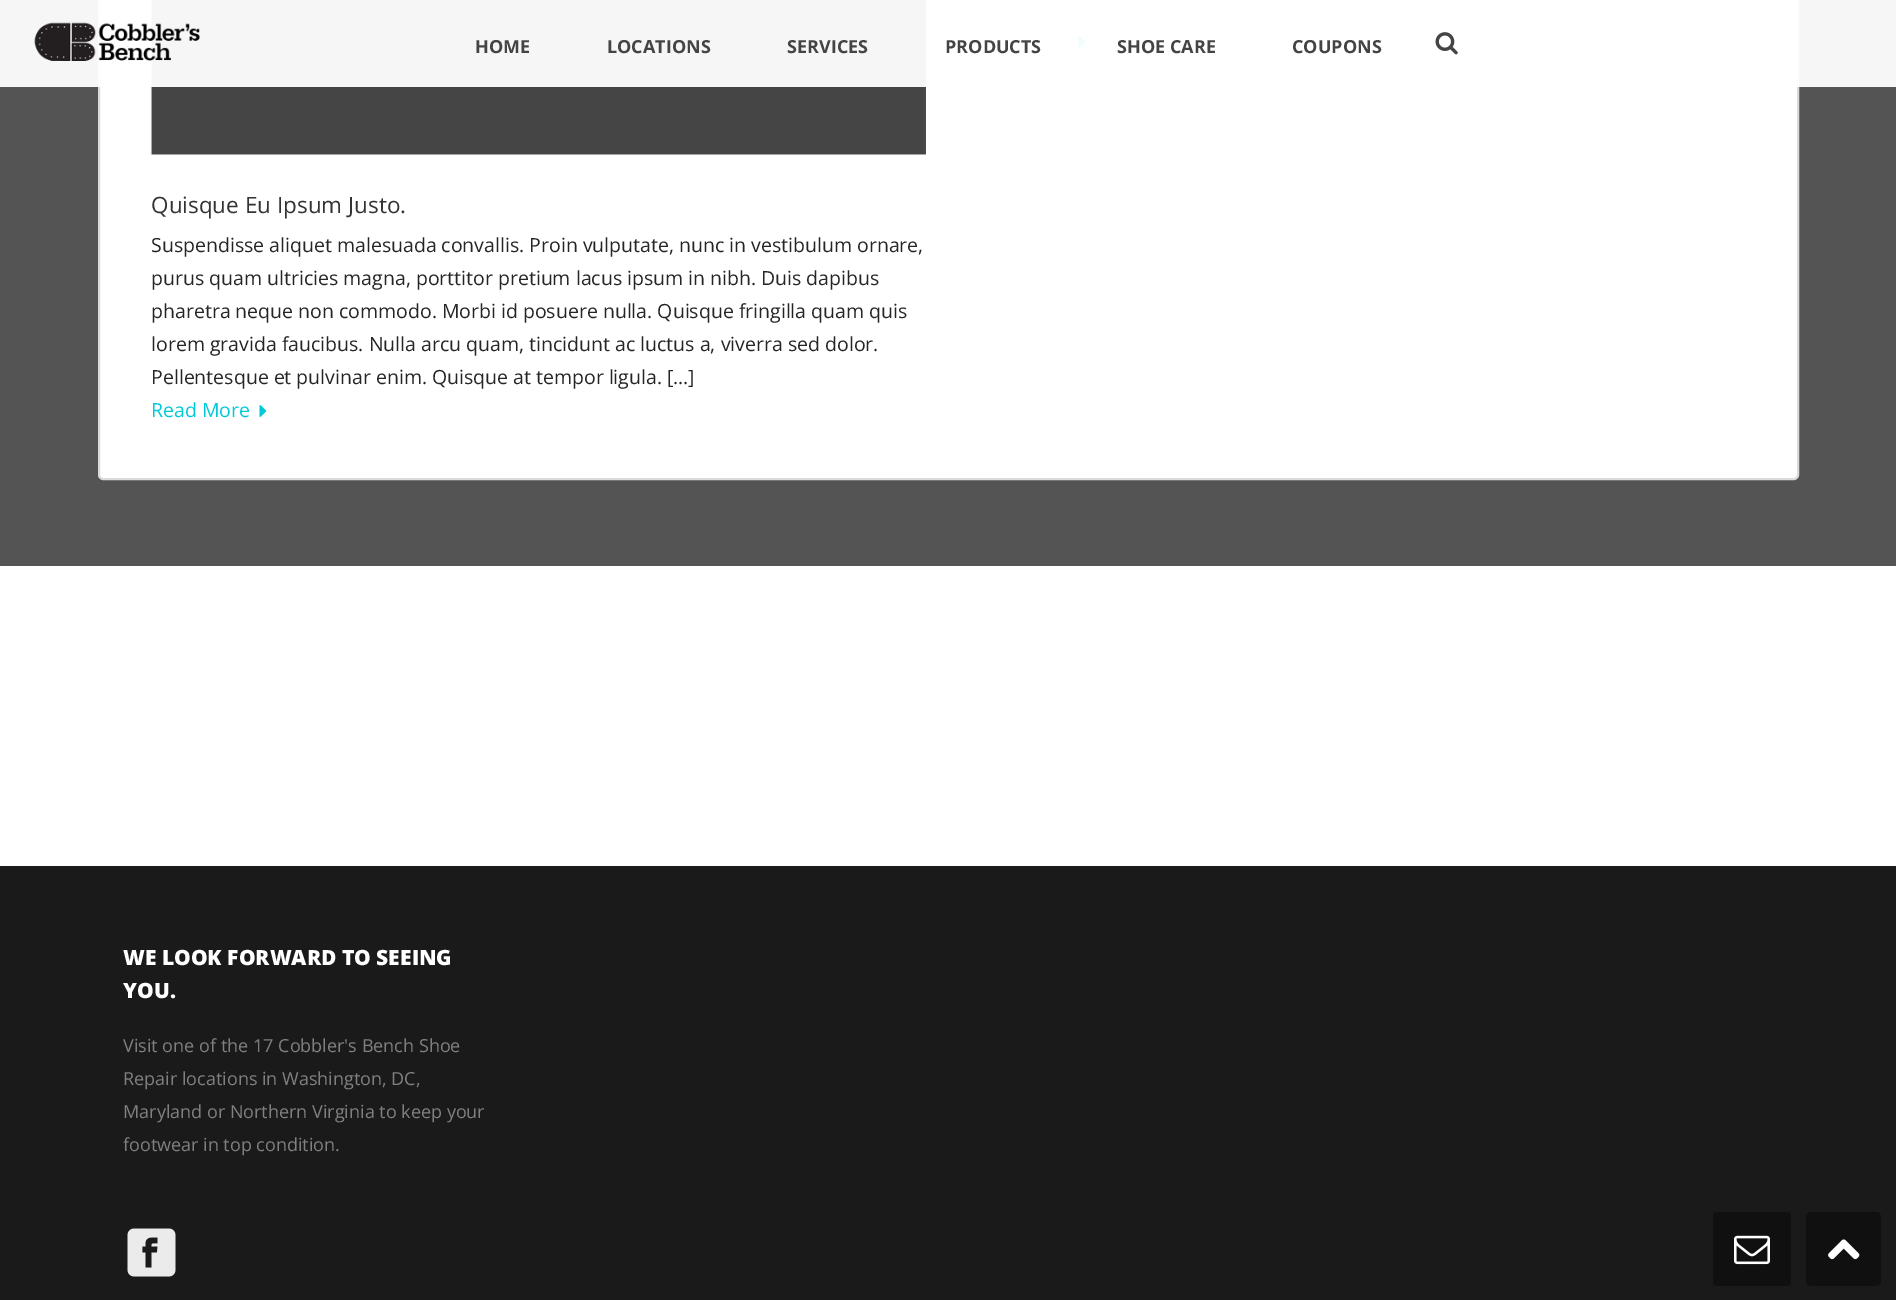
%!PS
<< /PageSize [1896 1300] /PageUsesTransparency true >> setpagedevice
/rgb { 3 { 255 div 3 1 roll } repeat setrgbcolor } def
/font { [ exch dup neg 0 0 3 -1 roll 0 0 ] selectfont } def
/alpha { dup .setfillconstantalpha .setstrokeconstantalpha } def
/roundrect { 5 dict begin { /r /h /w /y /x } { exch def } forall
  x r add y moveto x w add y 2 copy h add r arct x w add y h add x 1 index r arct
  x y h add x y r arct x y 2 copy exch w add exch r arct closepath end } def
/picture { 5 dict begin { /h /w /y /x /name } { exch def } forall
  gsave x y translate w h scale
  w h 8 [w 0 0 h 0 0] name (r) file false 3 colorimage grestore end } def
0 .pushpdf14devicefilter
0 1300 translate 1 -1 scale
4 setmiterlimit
255 255 255 rgb
0 0 1896 1300 rectfill
84 84 84 rgb
0 0 1896 566 rectfill
255 255 255 rgb
99 -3 moveto 1797 -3 lineto 1797 476 lineto 1797 477.5 1795.5 479 1794 479 curveto 102 479 lineto 100.5 479 99 477.5 99 476 curveto closepath fill
219 219 219 rgb
2 setlinewidth
99 -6 moveto 1798 -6 lineto 1798 475 lineto 1798 477 1796 479 1794 479 curveto 103 479 lineto 101 479 99 477 99 475 curveto closepath stroke
(img/3.rgb) 1078 36 8 12 picture
(img/4.rgb) 150 0 776 155 picture
0.95 alpha
255 255 255 rgb
0 0 1896 87 rectfill
1 alpha
(img/1.rgb) 34 22 166 39 picture
(img/2.rgb) 1435 32 23 23 picture
(img/3.rgb) 259 405 8 12 picture
26 26 26 rgb
0 866 1896 434 rectfill
(img/5.rgb) 127 1228 49 49 picture
16 16 16 rgb
1713 1212 78 74 3 roundrect fill
(img/6.rgb) 1734 1235 36 30 picture
1806 1212 75 74 5 roundrect fill
(img/7.rgb) 1828 1239 32 21 picture
/OpenSans-Bold 18 font
68 68 68 rgb
[
  [(HOME) 475 53]
  [(LOCATIONS) 607 53]
  [(SERVICES) 787 53]
  [(PRODUCTS) 945 53]
  [(SHOE CARE) 1117 53]
  [(COUPONS) 1292 53]
] { aload pop moveto show } forall
/OpenSans-Regular 22.5 font
51 51 51 rgb
151 213 moveto (Quisque Eu Ipsum Justo.) show
/OpenSans-Regular 19.5 font
37 37 37 rgb
[
  [(Suspendisse aliquet malesuada convallis. Proin vulputate, nunc in vestibulum ornare,) 151 252]
  [(purus quam ultricies magna, porttitor pretium lacus ipsum in nibh. Duis dapibus) 151 285]
  [(pharetra neque non commodo. Morbi id posuere nulla. Quisque fringilla quam quis) 151 318]
  [(lorem gravida faucibus. Nulla arcu quam, tincidunt ac luctus a, viverra sed dolor.) 151 351]
  [(Pellentesque et pulvinar enim. Quisque at tempor ligula. […]) 151 384]
] { aload pop moveto show } forall
0 200 215 rgb
151 417 moveto (Read More) show
/OpenSans-ExtraBold 21 font
255 255 255 rgb
123 965 moveto (WE LOOK FORWARD TO SEEING) show
123 998 moveto (YOU.) show
/OpenSans-Regular 18 font
128 128 128 rgb
[
  [(Visit one of the 17 Cobbler's Bench Shoe) 123 1052]
  [(Repair locations in Washington, DC,) 123 1085]
  [(Maryland or Northern Virginia to keep your) 123 1118]
  [(footwear in top condition.) 123 1151]
] { aload pop moveto show } forall
.poppdf14devicefilter showpage
